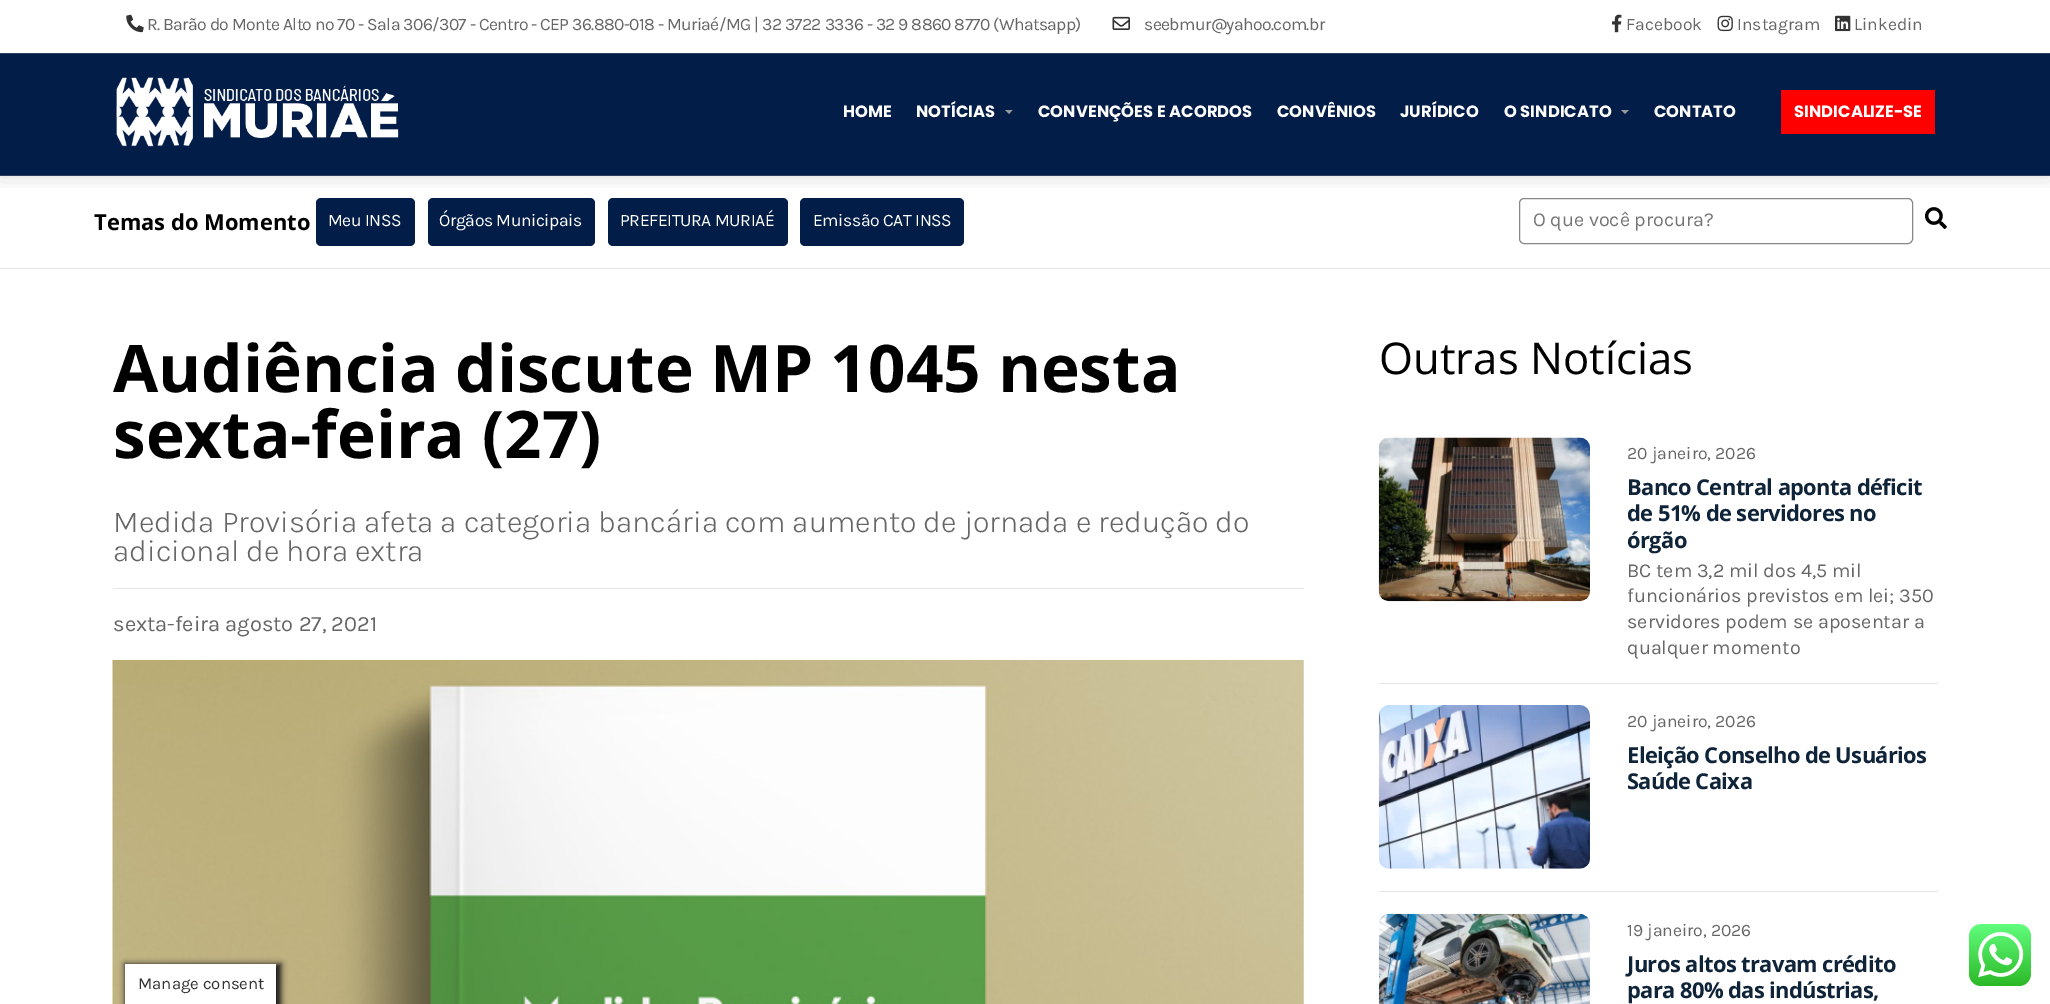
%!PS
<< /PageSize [2050 1004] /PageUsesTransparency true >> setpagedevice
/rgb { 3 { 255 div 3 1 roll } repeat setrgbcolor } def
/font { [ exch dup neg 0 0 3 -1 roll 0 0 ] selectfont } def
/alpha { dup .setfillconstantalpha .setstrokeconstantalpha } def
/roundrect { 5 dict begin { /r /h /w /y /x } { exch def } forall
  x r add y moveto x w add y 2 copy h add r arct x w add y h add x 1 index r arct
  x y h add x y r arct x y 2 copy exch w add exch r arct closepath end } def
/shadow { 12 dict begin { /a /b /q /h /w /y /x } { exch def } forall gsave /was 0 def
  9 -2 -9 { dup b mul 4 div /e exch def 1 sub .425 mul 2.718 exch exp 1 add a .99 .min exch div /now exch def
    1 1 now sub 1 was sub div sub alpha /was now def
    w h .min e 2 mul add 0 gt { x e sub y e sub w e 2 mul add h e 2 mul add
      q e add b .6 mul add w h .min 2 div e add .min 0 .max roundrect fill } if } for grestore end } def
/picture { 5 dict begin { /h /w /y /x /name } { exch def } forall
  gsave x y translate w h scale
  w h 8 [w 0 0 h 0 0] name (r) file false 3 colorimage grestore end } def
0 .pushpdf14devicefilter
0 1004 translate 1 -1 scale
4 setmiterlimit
255 255 255 rgb
0 0 2050 1004 rectfill
gsave
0 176 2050 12 rectclip
0 0 0 rgb
0 0 2050 176 0 11 0.15 shadow
grestore
(img/1.rgb) 126 14 18 19 picture
(img/2.rgb) 1112 16 18 14 picture
(img/3.rgb) 1612 14 10 19 picture
(img/4.rgb) 1717 15 16 17 picture
(img/5.rgb) 1835 15 16 17 picture
[
  [0 54 2050 121 2 29 72]
  [0 53 2050 1 40 63 99]
  [0 175 2050 1 40 63 99]
] { aload pop rgb rectfill } forall
(img/6.rgb) 116 77 283 70 picture
153 153 153 rgb
1005 110 moveto 1012.5 110 lineto 1009 114 lineto closepath fill
1621 110 moveto 1629 110 lineto 1625 114 lineto closepath fill
255 0 0 rgb
1781 90 154 44 rectfill
2 29 72 rgb
316 198 99 48 5 roundrect fill
428 198 167 48 5 roundrect fill
608 198 180 48 5 roundrect fill
800 198 164 48 5 roundrect fill
136 136 136 rgb
1519.5 198.5 393 45 4.5 roundrect stroke
(img/7.rgb) 1925 207 22 22 picture
230 230 230 rgb
0 268 2050 1 rectfill
113 588 1191 1 rectfill
(img/8.rgb) 112 660 1192 344 picture
(img/9.rgb) 1378 437 212 165 picture
1379 683 559 1 rectfill
(img/10.rgb) 1378 705 212 164 picture
1379 891 559 1 rectfill
(img/11.rgb) 1378 913 212 91 picture
(img/12.rgb) 1969 924 62 62 picture
22 22 22 rgb
125 964 156 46 0 3 1 shadow
255 255 255 rgb
125 964 151 40 rectfill
/Karla-Regular 17.5 font
102 102 102 rgb
147 30 moveto -0.62 0 (R. Barão do Monte Alto nº 70 - Sala 306/307 - Centro - CEP 36.880-018 - Muriaé/MG | 32 3722 3336 - 32 9 8860 8770 \(Whatsapp\)) ashow
1144 30 moveto -0.62 0 (seebmur@yahoo.com.br) ashow
[
  [(Facebook) 1626 30]
  [(Instagram) 1737 30]
  [(Linkedin) 1854 30]
] { aload pop moveto show } forall
/Poppins-Bold 16.4 font
255 255 255 rgb
[
  [(HOME) 843 117]
  [(NOTÍCIAS) 916 117]
  [(CONVENÇÕES E ACORDOS) 1038 117]
  [(CONVÊNIOS) 1277 117]
  [(JURÍDICO) 1400 117]
  [(O SINDICATO) 1504 117]
  [(CONTATO) 1654 117]
  [(SINDICALIZE-SE) 1794 117]
] { aload pop moveto show } forall
/OpenSans-Bold 21.9 font
0 0 0 rgb
94 230 moveto (Temas do Momento) show
/Karla-Regular 17.5 font
255 255 255 rgb
328 226 moveto -0.4 0 (Meu INSS) ashow
439 226 moveto -0.4 0 (Órgãos Municipais) ashow
620 226 moveto -0.4 0 (PREFEITURA MURIAÉ) ashow
813 226 moveto -0.4 0 (Emissão CAT INSS) ashow
/Karla-Regular 19.75 font
117 117 117 rgb
1533 226 moveto (O que você procura?) show
/OpenSans-Bold 65.6 font
0 0 0 rgb
113 392 moveto (Audiência discute MP 1045 nesta) show
113 458 moveto (sexta-feira \(27\)) show
/Karla-Light 30.6 font
102 102 102 rgb
113 532 moveto (Medida Provisória afeta a categoria bancária com aumento de jornada e redução do) show
113 561 moveto (adicional de hora extra) show
/Karla-Regular 21.9 font
113 631 moveto (sexta-feira agosto 27, 2021) show
/OpenSans-Regular 43.75 font
0 0 0 rgb
1379 374 moveto (Outras Notícias) show
/Karla-Regular 17.5 font
102 102 102 rgb
1627 459 moveto (20 janeiro, 2026) show
/OpenSans-Bold 21.9 font
15 35 57 rgb
1627 495 moveto -0.62 0 (Banco Central aponta déficit) ashow
1627 521 moveto -0.62 0 (de 51% de servidores no) ashow
1627 548 moveto -0.62 0 (órgão) ashow
/Karla-Regular 19.75 font
102 102 102 rgb
[
  [(BC tem 3,2 mil dos 4,5 mil) 1627 577]
  [(funcionários previstos em lei; 350) 1627 602]
  [(servidores podem se aposentar a) 1627 628]
  [(qualquer momento) 1627 654]
] { aload pop moveto show } forall
/Karla-Regular 17.5 font
1627 727 moveto (20 janeiro, 2026) show
/OpenSans-Bold 21.9 font
15 35 57 rgb
1627 763 moveto -0.62 0 (Eleição Conselho de Usuários) ashow
1627 789 moveto -0.62 0 (Saúde Caixa) ashow
/Karla-Regular 17.5 font
102 102 102 rgb
1627 936 moveto (19 janeiro, 2026) show
/OpenSans-Bold 21.9 font
15 35 57 rgb
1627 972 moveto -0.62 0 (Juros altos travam crédito) ashow
1627 998 moveto -0.62 0 (para 80% das indústrias,) ashow
/Karla-Regular 16.75 font
51 51 51 rgb
138 989 moveto (Manage consent) show
.poppdf14devicefilter showpage
